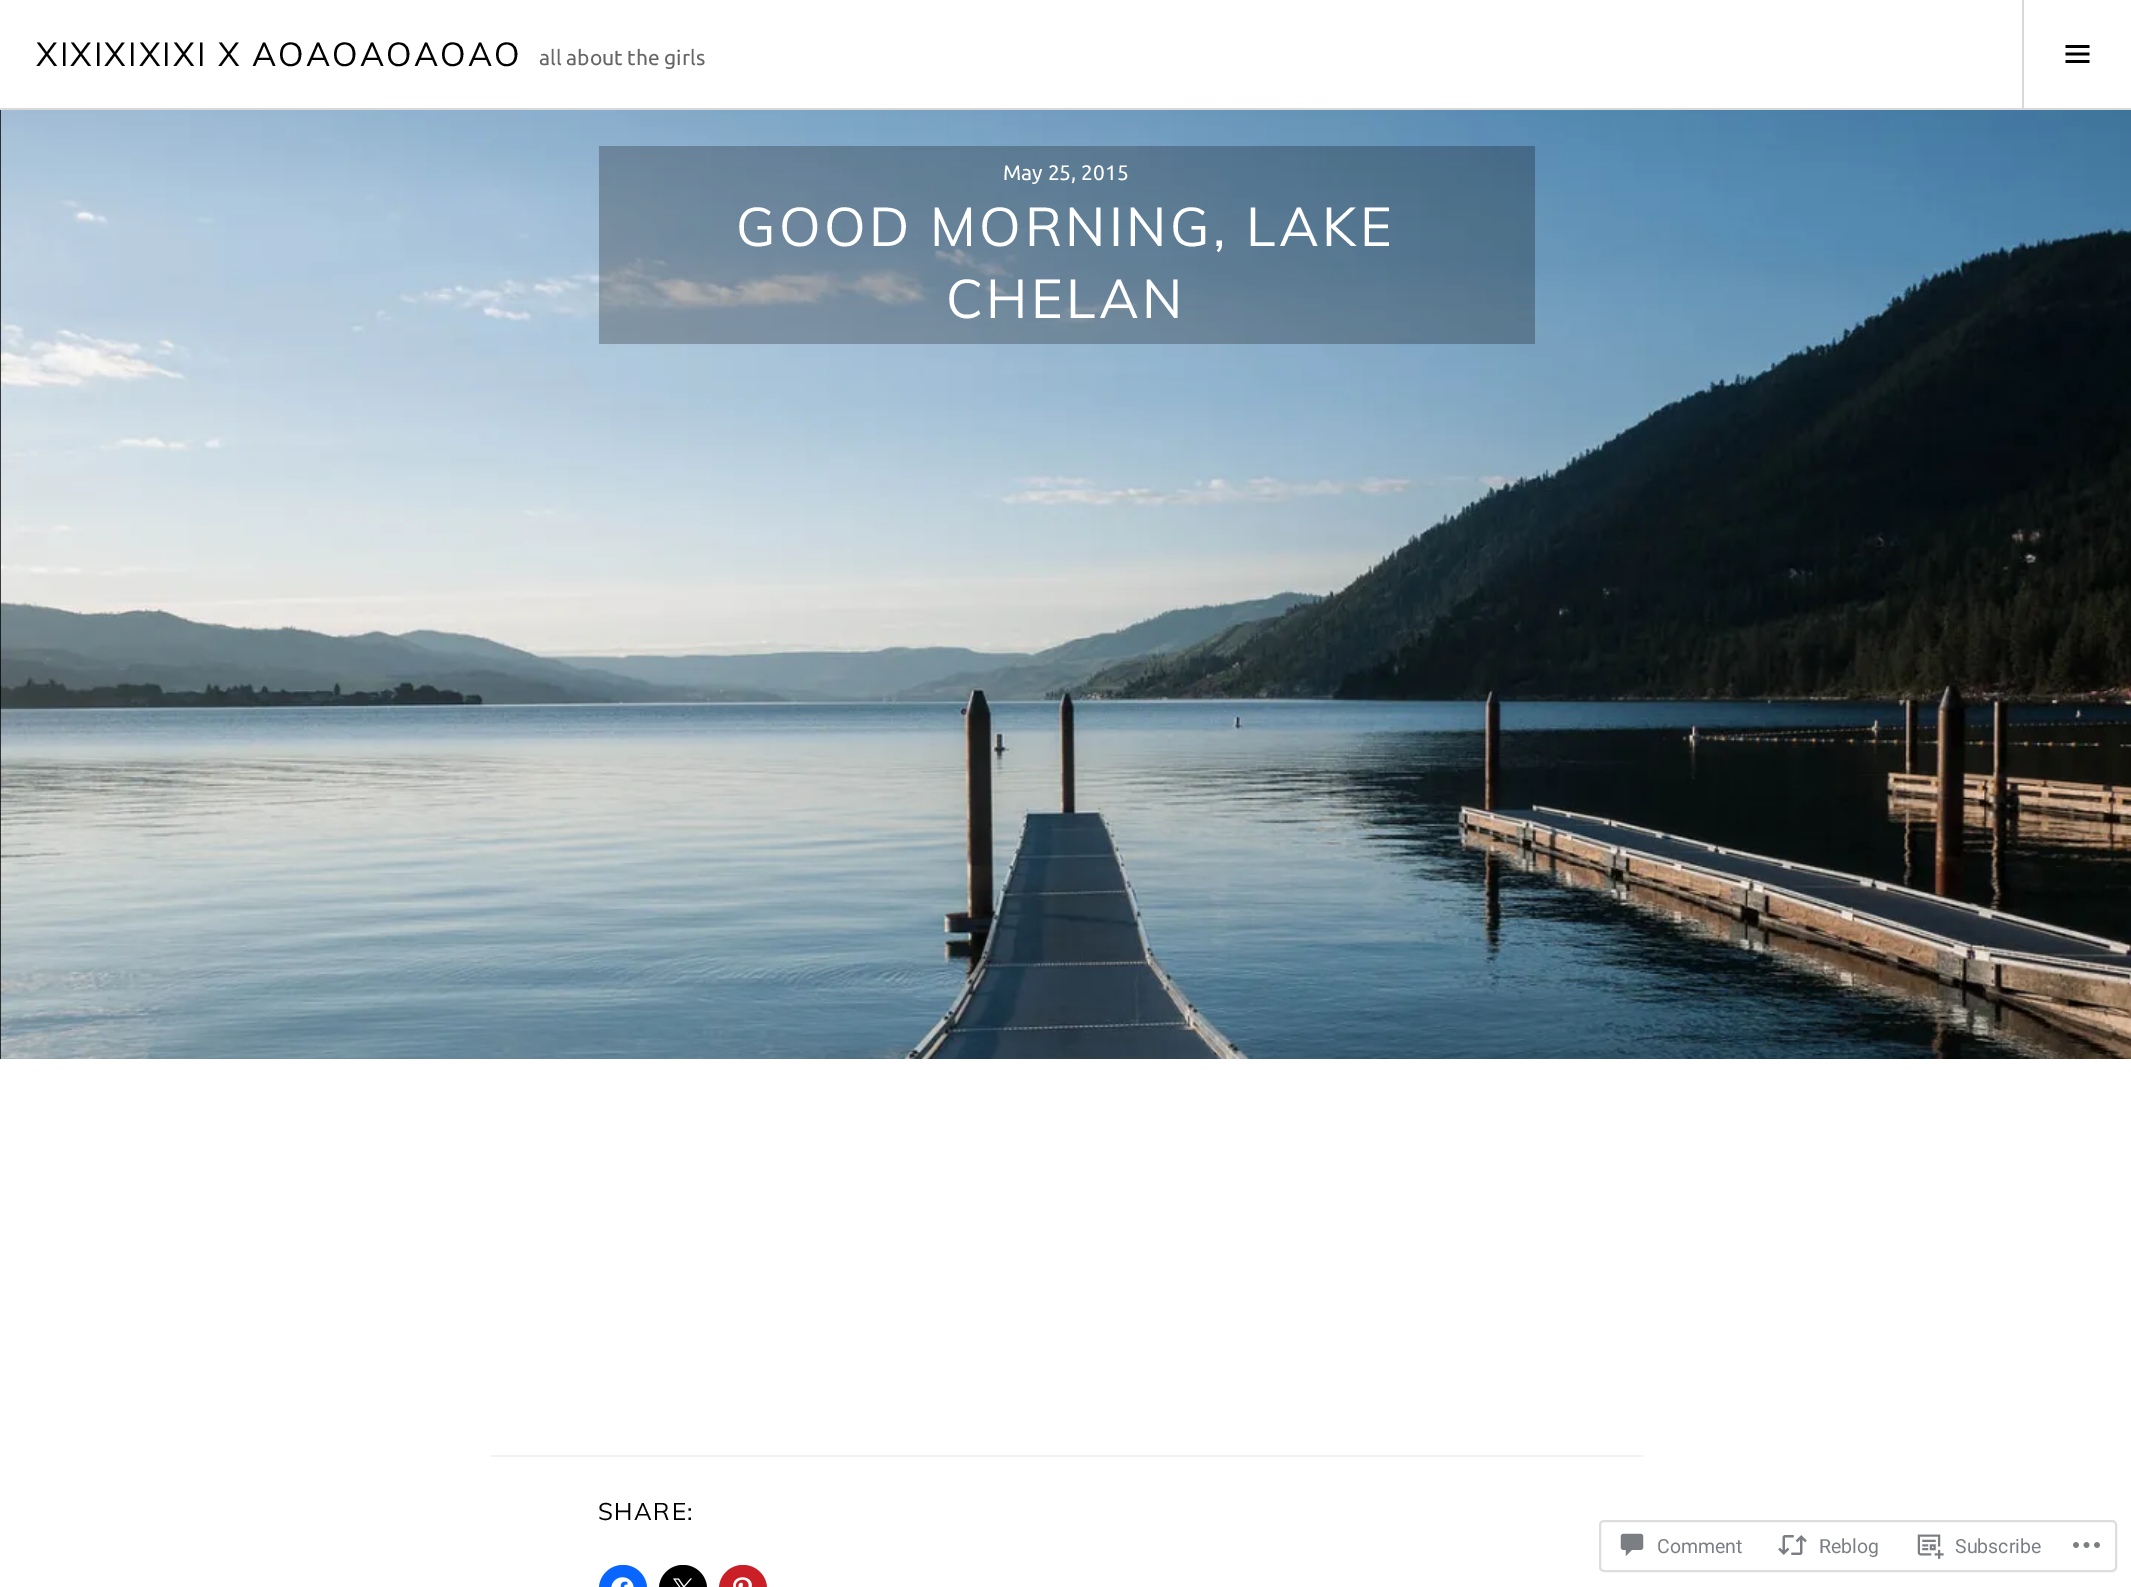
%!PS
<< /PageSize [2131 1587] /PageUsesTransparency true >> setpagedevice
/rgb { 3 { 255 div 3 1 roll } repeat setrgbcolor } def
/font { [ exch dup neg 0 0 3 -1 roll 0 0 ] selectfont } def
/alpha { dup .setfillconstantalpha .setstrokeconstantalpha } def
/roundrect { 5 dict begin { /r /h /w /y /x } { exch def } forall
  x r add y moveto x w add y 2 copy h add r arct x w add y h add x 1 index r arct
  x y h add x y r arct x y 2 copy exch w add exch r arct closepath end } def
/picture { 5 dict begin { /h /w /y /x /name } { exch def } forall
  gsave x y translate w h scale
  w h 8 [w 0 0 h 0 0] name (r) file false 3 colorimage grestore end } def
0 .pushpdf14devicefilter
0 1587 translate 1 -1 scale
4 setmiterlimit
255 255 255 rgb
0 0 2131 1587 rectfill
217 217 217 rgb
0 108 2131 2 rectfill
2022 0 2 108 rectfill
(img/1.rgb) 2065 45 25 18 picture
0 0 0 rgb
0 110 1 949 rectfill
(img/2.rgb) 0 110 2131 949 picture
0.25 alpha
599 146 936 198 rectfill
1 alpha
242 242 242 rgb
491 1455 1152 2 rectfill
8 102 255 rgb
599 1565 48 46 24 roundrect fill
(img/3.rgb) 611 1577 23 10 picture
0 0 0 rgb
659 1565 48 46 24 roundrect fill
(img/4.rgb) 673 1578 19 9 picture
202 31 39 rgb
719 1565 48 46 24 roundrect fill
(img/5.rgb) 733 1577 19 10 picture
221 221 223 rgb
2 setlinewidth
1600 1521 516 50 4 roundrect stroke
(img/6.rgb) 1620 1533 24 24 picture
(img/7.rgb) 1778 1535 29 20 picture
(img/8.rgb) 1917 1534 27 25 picture
(img/9.rgb) 2073 1542 27 6 picture
/Muli-Regular 33 font
0 0 0 rgb
36 66 moveto 2.1 0 (XIXIXIXIXI X AOAOAOAOAO) ashow
/Ubuntu-Regular 21 font
102 102 102 rgb
539 65 moveto (all about the girls) show
255 255 255 rgb
1003 180 moveto (May 25, 2015) show
/Muli-Regular 54 font
736 246 moveto 3.4 0 (GOOD MORNING, LAKE) ashow
946 318 moveto 3.4 0 (CHELAN) ashow
/Muli-Regular 24 font
0 0 0 rgb
598 1520 moveto 1.5 0 (SHARE:) ashow
/Roboto-Regular 19.5 font
123 127 133 rgb
[
  [(Comment) 1657 1553]
  [(Reblog) 1819 1553]
  [(Subscribe) 1955 1553]
] { aload pop moveto show } forall
.poppdf14devicefilter showpage
